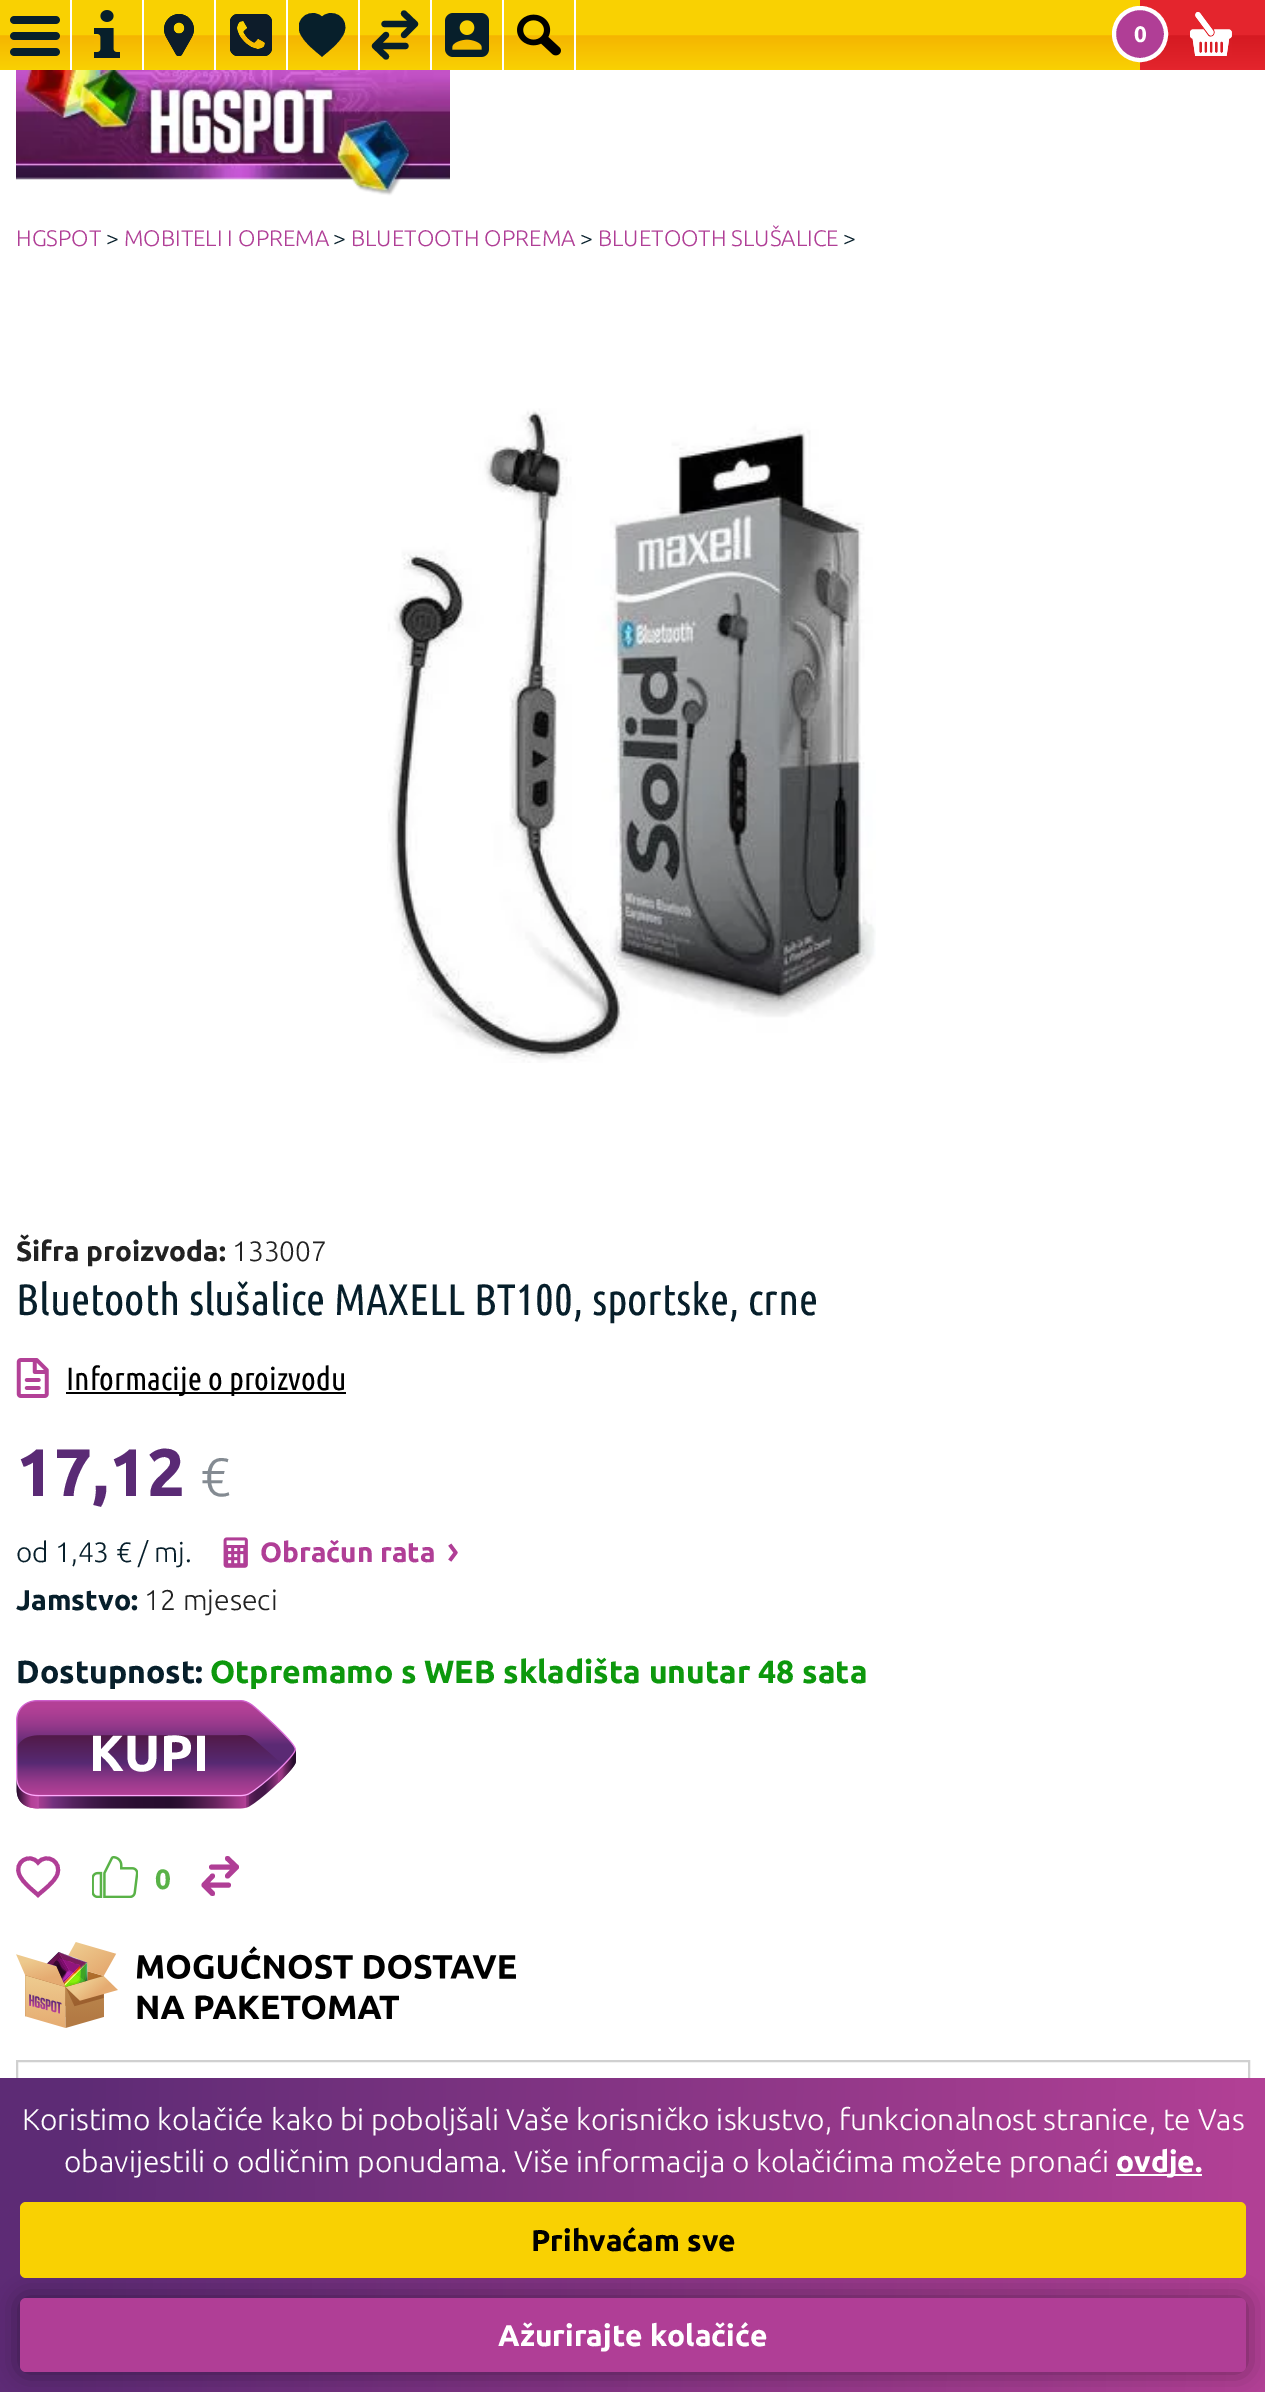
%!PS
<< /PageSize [1265 2392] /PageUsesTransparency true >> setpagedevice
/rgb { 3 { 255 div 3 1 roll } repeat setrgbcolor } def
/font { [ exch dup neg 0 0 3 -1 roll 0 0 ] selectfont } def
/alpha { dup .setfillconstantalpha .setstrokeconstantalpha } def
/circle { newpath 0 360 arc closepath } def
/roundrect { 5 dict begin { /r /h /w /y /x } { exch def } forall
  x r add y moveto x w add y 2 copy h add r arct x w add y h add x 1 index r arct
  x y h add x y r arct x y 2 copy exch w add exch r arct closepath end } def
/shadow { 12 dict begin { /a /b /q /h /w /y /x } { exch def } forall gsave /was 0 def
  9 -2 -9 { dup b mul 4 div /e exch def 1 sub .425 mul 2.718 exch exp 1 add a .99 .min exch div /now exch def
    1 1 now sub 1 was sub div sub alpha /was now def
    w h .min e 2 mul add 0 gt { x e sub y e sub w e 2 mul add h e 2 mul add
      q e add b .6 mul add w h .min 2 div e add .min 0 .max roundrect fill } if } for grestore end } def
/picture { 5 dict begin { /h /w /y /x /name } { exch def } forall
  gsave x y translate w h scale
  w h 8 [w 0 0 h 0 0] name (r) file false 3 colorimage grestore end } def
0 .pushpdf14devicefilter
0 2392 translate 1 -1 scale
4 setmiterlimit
255 255 255 rgb
0 0 1265 2392 rectfill
gsave 0 0 moveto 1140 0 lineto 1140 70 lineto 0 70 lineto closepath clip newpath
<< /ShadingType 2 /ColorSpace /DeviceRGB /Coords [633 0 633 70] /Extend [true true] /Function << /FunctionType 3 /Domain [0 1] /Functions [<< /FunctionType 2 /Domain [0 1] /C0 [0.976 0.82 0.008] /C1 [0.976 0.82 0.008] /N 1 >> << /FunctionType 2 /Domain [0 1] /C0 [0.976 0.82 0.008] /C1 [0.961 0.71 0.004] /N 1 >> << /FunctionType 2 /Domain [0 1] /C0 [0.961 0.71 0.004] /C1 [0.976 0.82 0.008] /N 1 >>] /Bounds [0.5 0.51] /Encode [0 1 0 1 0 1] >> >> shfill grestore
70 0 2 70 rectfill
(img/1.rgb) 10 16 50 40 picture
142 0 2 70 rectfill
(img/2.rgb) 94 10 26 48 picture
214 0 2 70 rectfill
(img/3.rgb) 164 14 30 42 picture
286 0 2 70 rectfill
(img/4.rgb) 230 14 42 42 picture
358 0 2 70 rectfill
7 31 43 rgb
322 54 moveto 315 48 306 41 302 33 curveto 296 19 313 9 322 20 curveto 331 9 348 19 342 33 curveto 338 41 329 48 322 54 curveto closepath fill
gsave
299 13 48 44 rectclip
4.2 setlinewidth
322 54 moveto 315 48 306 41.5 302 32.5 curveto 296 19 313 9 322 19.5 curveto 331 9 348 19 342 32.5 curveto 338 41.5 329 48 322 54 curveto closepath stroke
grestore
255 255 255 rgb
430 0 2 70 rectfill
7 31 43 rgb
6.2 setlinewidth
1 setlinecap
1 setlinejoin
384.5 24 moveto 415 24 lineto 415 24 moveto 404 35 lineto 415 24 moveto 404 13.5 lineto 405.5 46 moveto 375 46 lineto 375 46 moveto 386 56.5 lineto 375 46 moveto 386 35 lineto stroke
255 255 255 rgb
502 0 2 70 rectfill
(img/5.rgb) 445 13 44 44 picture
574 0 2 70 rectfill
(img/6.rgb) 517 14 44 42 picture
gsave 1140 0 moveto 1265 0 lineto 1265 70 lineto 1140 70 lineto closepath clip newpath
<< /ShadingType 2 /ColorSpace /DeviceRGB /Coords [1203 0 1203 70] /Extend [true true] /Function << /FunctionType 3 /Domain [0 1] /Functions [<< /FunctionType 2 /Domain [0 1] /C0 [0.894 0.145 0.176] /C1 [0.894 0.145 0.176] /N 1 >> << /FunctionType 2 /Domain [0 1] /C0 [0.894 0.145 0.176] /C1 [0.835 0.102 0.133] /N 1 >> << /FunctionType 2 /Domain [0 1] /C0 [0.835 0.102 0.133] /C1 [0.894 0.145 0.176] /N 1 >>] /Bounds [0.5 0.51] /Encode [0 1 0 1 0 1] >> >> shfill grestore
176 62 150 rgb
1140 34 26 circle gsave fill grestore
255 255 255 rgb
4 setlinewidth
0 setlinecap
0 setlinejoin
stroke
(img/7.rgb) 1190 12 42 44 picture
(img/8.rgb) 16 70 434 126 picture
(img/9.rgb) 387 408 489 655 picture
(img/10.rgb) 16 1358 33 40 picture
0 0 0 rgb
66 1392 280 2 rectfill
(img/11.rgb) 223 1537 25 31 picture
(img/12.rgb) 448 1543 10 19 picture
(img/13.rgb) 16 1700 280 109 picture
176 62 150 rgb
38 1895 moveto 31.5 1889 23 1883 19.5 1875 curveto 13.5 1862 29.5 1852.5 38 1862.5 curveto 47 1852.5 62.5 1862 57 1875 curveto 53.5 1883 44.5 1889 38 1895 curveto closepath stroke
(img/14.rgb) 92 1856 46 42 picture
5 setlinewidth
1 setlinecap
1 setlinejoin
211.5 1867 moveto 236.5 1867 lineto 236.5 1867 moveto 227.5 1876 lineto 236.5 1867 moveto 227.5 1858.5 lineto 228.5 1885 moveto 204 1885 lineto 204 1885 moveto 212.5 1893.5 lineto 204 1885 moveto 212.5 1876 lineto stroke
(img/15.rgb) 16 1942 500 86 picture
208 208 208 rgb
2 setlinewidth
0 setlinecap
0 setlinejoin
17 2061 1232 98 rectstroke
gsave 0 2078 moveto 1265 2078 lineto 1265 2392 lineto 0 2392 lineto closepath clip newpath
<< /ShadingType 2 /ColorSpace /DeviceRGB /Coords [-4.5 2214 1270 2256] /Extend [true true] /Function << /FunctionType 3 /Domain [0 1] /Functions [<< /FunctionType 2 /Domain [0 1] /C0 [0.365 0.169 0.459] /C1 [0.365 0.169 0.459] /N 1 >> << /FunctionType 2 /Domain [0 1] /C0 [0.365 0.169 0.459] /C1 [0.694 0.251 0.584] /N 1 >> << /FunctionType 2 /Domain [0 1] /C0 [0.694 0.251 0.584] /C1 [0.694 0.251 0.584] /N 1 >>] /Bounds [0.05 0.97] /Encode [0 1 0 1 0 1] >> >> shfill grestore
255 255 255 rgb
1116 2174 86 2 rectfill
0 0 0 rgb
20 2298 1226 74 6 12 0.4 shadow
249 209 2 rgb
20 2202 1226 76 6 roundrect fill
176 62 150 rgb
20 2298 1226 74 6 roundrect fill
/Ubuntu-Bold 22.5 font
255 255 255 rgb
1134 42 moveto (0) show
/Ubuntu-Light 22.5 font
176 62 150 rgb
16 246 moveto (HGSPOT) show
7 31 43 rgb
106 246 moveto (>) show
176 62 150 rgb
124 246 moveto (MOBITELI I OPREMA) show
7 31 43 rgb
333 246 moveto (>) show
176 62 150 rgb
351 246 moveto (BLUETOOTH OPREMA) show
7 31 43 rgb
580 246 moveto (>) show
176 62 150 rgb
598 246 moveto (BLUETOOTH SLUŠALICE) show
7 31 43 rgb
843 246 moveto (>) show
/Ubuntu-Bold 28 font
34 34 34 rgb
16 1261 moveto (Šifra proizvoda:) show
/Ubuntu-Light 28 font
232 1261 moveto (133007) show
/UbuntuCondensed-Regular 44 font
7 31 43 rgb
16 1315 moveto (Bluetooth slušalice MAXELL BT100, sportske, crne) show
/UbuntuCondensed-Regular 32 font
0 0 0 rgb
66 1390 moveto (Informacije o proizvodu) show
/Ubuntu-Bold 67 font
90 42 117 rgb
16 1496 moveto (17,12) show
/Ubuntu-Light 54 font
132 139 146 rgb
200 1496 moveto (€) show
/Ubuntu-Light 28 font
7 31 43 rgb
16 1562 moveto (od 1,43 € / mj.) show
/Ubuntu-Bold 28 font
176 62 150 rgb
260 1562 moveto (Obračun rata) show
/Ubuntu-Bold 28.5 font
7 31 43 rgb
16 1610 moveto (Jamstvo:) show
/Ubuntu-Light 28.5 font
34 34 34 rgb
144 1610 moveto (12 mjeseci) show
/Ubuntu-Bold 32 font
7 31 43 rgb
16 1683 moveto (Dostupnost:) show
13 152 13 rgb
210 1683 moveto (Otpremamo s WEB skladišta unutar 48 sata) show
/Ubuntu-Bold 51 font
255 255 255 rgb
89 1771 moveto (KUPI) show
/Ubuntu-Bold 28 font
89 178 71 rgb
155 1889 moveto (0) show
/Ubuntu-Light 30 font
255 255 255 rgb
22 2130 moveto (Koristimo kolačiće kako bi poboljšali Vaše korisničko iskustvo, funkcionalnost stranice, te Vas) show
64 2172 moveto (obavijestili o odličnim ponudama. Više informacija o kolačićima možete pronaći) show
/Ubuntu-Bold 30 font
1116 2172 moveto (ovdje.) show
0 0 0 rgb
531 2251 moveto (Prihvaćam sve) show
255 255 255 rgb
498 2346 moveto (Ažurirajte kolačiće) show
.poppdf14devicefilter showpage
